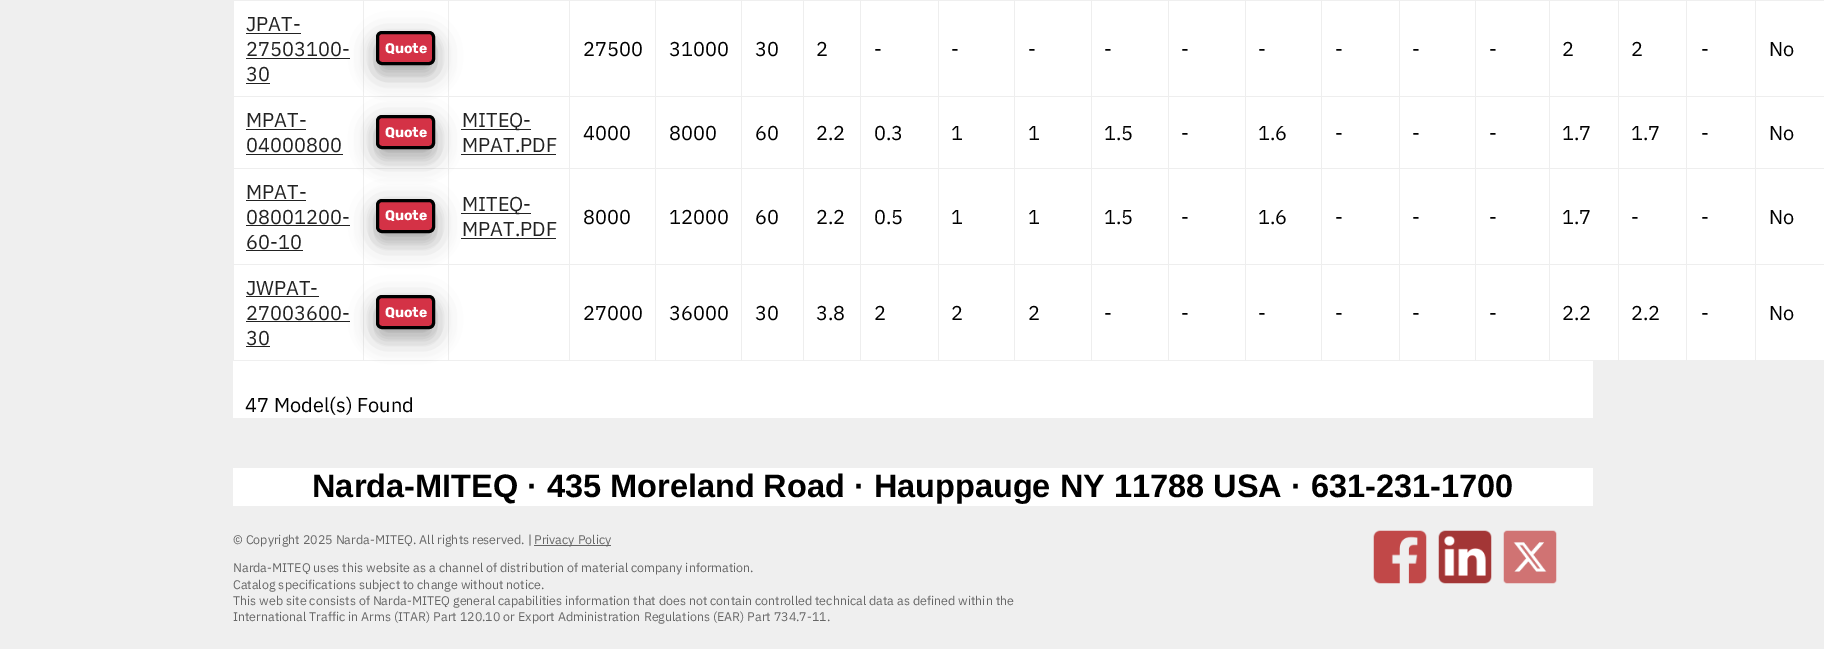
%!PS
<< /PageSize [1824 649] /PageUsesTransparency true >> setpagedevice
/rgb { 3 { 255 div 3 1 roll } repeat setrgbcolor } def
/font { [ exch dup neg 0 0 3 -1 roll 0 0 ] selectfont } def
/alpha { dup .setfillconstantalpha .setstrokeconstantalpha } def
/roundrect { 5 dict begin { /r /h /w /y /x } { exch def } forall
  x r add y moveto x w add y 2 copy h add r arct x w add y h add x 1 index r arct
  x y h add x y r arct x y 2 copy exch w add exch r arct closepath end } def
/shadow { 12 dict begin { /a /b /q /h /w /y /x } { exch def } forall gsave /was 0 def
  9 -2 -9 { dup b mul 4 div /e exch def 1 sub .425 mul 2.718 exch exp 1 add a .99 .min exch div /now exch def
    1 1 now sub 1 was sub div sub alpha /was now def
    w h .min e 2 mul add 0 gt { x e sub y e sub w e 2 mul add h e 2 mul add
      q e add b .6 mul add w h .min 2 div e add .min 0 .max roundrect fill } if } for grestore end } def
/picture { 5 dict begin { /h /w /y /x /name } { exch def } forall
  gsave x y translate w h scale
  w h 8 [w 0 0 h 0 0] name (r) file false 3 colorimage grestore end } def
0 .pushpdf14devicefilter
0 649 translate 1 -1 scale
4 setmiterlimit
239 239 239 rgb
0 0 1824 649 rectfill
[
  [233 361 1360 57 255 255 255]
  [234 1 1590 359 255 255 255]
  [246 33 55 1 34 34 34]
  [246 58 104 1 34 34 34]
  [246 83 24 1 34 34 34]
  [1755 96 69 1 238 238 238]
  [1755 168 69 1 238 238 238]
  [1755 264 69 1 238 238 238]
  [1755 264 1 97 238 238 238]
  [1686 264 70 1 238 238 238]
  [1755 168 1 97 238 238 238]
  [1686 168 70 1 238 238 238]
  [1755 96 1 73 238 238 238]
  [1686 96 70 1 238 238 238]
  [1686 264 1 97 238 238 238]
  [1618 264 70 1 238 238 238]
  [1686 168 1 97 238 238 238]
  [1618 168 70 1 238 238 238]
  [1686 96 1 73 238 238 238]
  [1618 96 70 1 238 238 238]
  [1618 264 1 97 238 238 238]
  [1549 264 70 1 238 238 238]
  [1618 168 1 97 238 238 238]
  [1549 168 70 1 238 238 238]
  [1618 96 1 73 238 238 238]
  [1549 96 70 1 238 238 238]
  [1549 264 1 97 238 238 238]
  [1475 264 75 1 238 238 238]
  [1549 168 1 97 238 238 238]
  [1475 168 75 1 238 238 238]
  [1549 96 1 73 238 238 238]
  [1475 96 75 1 238 238 238]
  [1475 264 1 97 238 238 238]
  [1399 264 77 1 238 238 238]
  [1475 168 1 97 238 238 238]
  [1399 168 77 1 238 238 238]
  [1475 96 1 73 238 238 238]
  [1399 96 77 1 238 238 238]
  [1399 264 1 97 238 238 238]
  [1321 264 79 1 238 238 238]
  [1399 168 1 97 238 238 238]
  [1321 168 79 1 238 238 238]
  [1399 96 1 73 238 238 238]
  [1321 96 79 1 238 238 238]
  [1321 264 1 97 238 238 238]
  [1245 264 78 1 238 238 238]
  [1321 168 1 97 238 238 238]
  [1245 168 78 1 238 238 238]
  [1321 96 1 73 238 238 238]
  [1245 96 78 1 238 238 238]
  [1245 264 1 97 238 238 238]
  [1168 264 78 1 238 238 238]
  [1245 168 1 97 238 238 238]
  [1168 168 78 1 238 238 238]
  [1245 96 1 73 238 238 238]
  [1168 96 78 1 238 238 238]
  [1168 264 1 97 238 238 238]
  [1091 264 78 1 238 238 238]
  [1168 168 1 97 238 238 238]
  [1091 168 78 1 238 238 238]
  [1168 96 1 73 238 238 238]
  [1091 96 78 1 238 238 238]
  [1091 264 1 97 238 238 238]
  [1014 264 79 1 238 238 238]
  [1091 168 1 97 238 238 238]
  [1014 168 79 1 238 238 238]
  [1091 96 1 73 238 238 238]
  [1014 96 79 1 238 238 238]
  [1014 264 1 97 238 238 238]
  [938 264 77 1 238 238 238]
  [1014 168 1 97 238 238 238]
  [938 168 77 1 238 238 238]
  [1014 96 1 73 238 238 238]
  [938 96 77 1 238 238 238]
  [938 264 1 97 238 238 238]
  [860 264 79 1 238 238 238]
  [938 168 1 97 238 238 238]
  [860 168 79 1 238 238 238]
  [938 96 1 73 238 238 238]
  [860 96 79 1 238 238 238]
  [860 264 1 97 238 238 238]
  [803 264 58 1 238 238 238]
  [860 168 1 97 238 238 238]
  [803 168 58 1 238 238 238]
  [860 96 1 73 238 238 238]
  [803 96 58 1 238 238 238]
  [803 264 1 97 238 238 238]
  [741 264 63 1 238 238 238]
  [803 168 1 97 238 238 238]
  [741 168 63 1 238 238 238]
  [803 96 1 73 238 238 238]
  [741 96 63 1 238 238 238]
  [741 264 1 97 238 238 238]
  [655 264 88 1 238 238 238]
  [741 168 1 97 238 238 238]
  [655 168 88 1 238 238 238]
  [741 96 1 73 238 238 238]
  [655 96 88 1 238 238 238]
  [655 264 1 97 238 238 238]
  [569 264 87 1 238 238 238]
  [655 168 1 97 238 238 238]
  [569 168 87 1 238 238 238]
  [655 96 1 73 238 238 238]
  [569 96 87 1 238 238 238]
  [569 264 1 97 238 238 238]
  [448 264 122 1 238 238 238]
  [569 168 1 97 238 238 238]
  [448 168 122 1 238 238 238]
  [569 96 1 73 238 238 238]
  [448 96 122 1 238 238 238]
  [448 264 1 97 238 238 238]
  [363 264 86 1 238 238 238]
  [448 168 1 97 238 238 238]
  [363 168 86 1 238 238 238]
  [448 96 1 73 238 238 238]
  [363 96 86 1 238 238 238]
  [363 264 1 97 238 238 238]
  [233 264 131 1 238 238 238]
  [363 168 1 97 238 238 238]
  [233 168 131 1 238 238 238]
  [363 96 1 73 238 238 238]
  [233 96 131 1 238 238 238]
  [363 0 1 98 238 238 238]
  [448 0 1 98 238 238 238]
] { aload pop rgb rectfill } forall
0 0 0 rgb
376 39 59 34 6 12.5 0.19 shadow
376 41 59 34 6 10 0.2 shadow
212 50 70 rgb
377.5 32.5 56 31 4.5 roundrect gsave fill grestore
0 0 0 rgb
3 setlinewidth
stroke
[
  [569 0 1 98 238 238 238]
  [655 0 1 98 238 238 238]
  [741 0 1 98 238 238 238]
  [803 0 1 98 238 238 238]
  [860 0 1 98 238 238 238]
  [938 0 1 98 238 238 238]
  [1014 0 1 98 238 238 238]
  [1091 0 1 98 238 238 238]
  [1168 0 1 98 238 238 238]
  [1245 0 1 98 238 238 238]
  [1321 0 1 98 238 238 238]
  [1399 0 1 98 238 238 238]
  [1475 0 1 98 238 238 238]
  [1549 0 1 98 238 238 238]
  [1618 0 1 98 238 238 238]
  [1686 0 1 98 238 238 238]
  [1755 0 1 98 238 238 238]
  [246 129 60 1 34 34 34]
  [246 154 97 1 34 34 34]
] { aload pop rgb rectfill } forall
0 0 0 rgb
376 123 59 33 6 12.5 0.19 shadow
376 125 59 34 6 10 0.2 shadow
212 50 70 rgb
377.5 116.5 56 31 4.5 roundrect gsave fill grestore
0 0 0 rgb
stroke
[
  [461 129 70 1 34 34 34]
  [461 154 95 1 34 34 34]
  [246 200 60 1 34 34 34]
  [246 225 104 1 34 34 34]
  [246 250 57 1 34 34 34]
] { aload pop rgb rectfill } forall
0 0 0 rgb
376 206 59 34 6 12.5 0.19 shadow
376 209 59 34 6 10 0.2 shadow
212 50 70 rgb
377.5 200.5 56 31 4.5 roundrect gsave fill grestore
0 0 0 rgb
stroke
[
  [461 213 70 1 34 34 34]
  [461 238 95 1 34 34 34]
  [246 296 73 1 34 34 34]
  [246 321 104 1 34 34 34]
  [246 346 24 1 34 34 34]
] { aload pop rgb rectfill } forall
0 0 0 rgb
376 303 59 33 6 12.5 0.19 shadow
376 305 59 34 6 10 0.2 shadow
212 50 70 rgb
377.5 296.5 56 31 4.5 roundrect gsave fill grestore
0 0 0 rgb
stroke
255 255 255 rgb
233 468 1360 38 rectfill
102 102 102 rgb
534 545 77 1 rectfill
(img/1.rgb) 1373 530 54 54 picture
(img/2.rgb) 1438 530 54 54 picture
(img/3.rgb) 1503 530 54 54 picture
/IBMPlexSans-Regular 20 font
34 34 34 rgb
[
  [(JPAT-) 246 31]
  [(27503100-) 246 56]
  [(30) 246 81]
] { aload pop moveto show } forall
/Rubik-Bold 14 font
255 255 255 rgb
385 53 moveto (Quote) show
/IBMPlexSans-Regular 20 font
0 0 0 rgb
[
  [(27500) 583 56]
  [(31000) 669 56]
  [(30) 755 56]
  [(2) 816 56]
  [(-) 874 56]
  [(-) 951 56]
  [(-) 1028 56]
  [(-) 1104 56]
  [(-) 1181 56]
  [(-) 1258 56]
  [(-) 1335 56]
  [(-) 1412 56]
  [(-) 1489 56]
  [(2) 1562 56]
  [(2) 1631 56]
  [(-) 1701 56]
  [(No) 1769 56]
] { aload pop moveto show } forall
34 34 34 rgb
246 127 moveto (MPAT-) show
246 152 moveto (04000800) show
/Rubik-Bold 14 font
255 255 255 rgb
385 137 moveto (Quote) show
/IBMPlexSans-Regular 20 font
34 34 34 rgb
462 127 moveto (MITEQ-) show
462 152 moveto (MPAT.PDF) show
0 0 0 rgb
[
  [(4000) 583 140]
  [(8000) 669 140]
  [(60) 755 140]
  [(2.2) 816 140]
  [(0.3) 874 140]
  [(1) 951 140]
  [(1) 1028 140]
  [(1.5) 1104 140]
  [(-) 1181 140]
  [(1.6) 1258 140]
  [(-) 1335 140]
  [(-) 1412 140]
  [(-) 1489 140]
  [(1.7) 1562 140]
  [(1.7) 1631 140]
  [(-) 1701 140]
  [(No) 1769 140]
] { aload pop moveto show } forall
34 34 34 rgb
[
  [(MPAT-) 246 199]
  [(08001200-) 246 224]
  [(60-10) 246 249]
] { aload pop moveto show } forall
/Rubik-Bold 14 font
255 255 255 rgb
385 220 moveto (Quote) show
/IBMPlexSans-Regular 20 font
34 34 34 rgb
462 211 moveto (MITEQ-) show
462 236 moveto (MPAT.PDF) show
0 0 0 rgb
[
  [(8000) 583 224]
  [(12000) 669 224]
  [(60) 755 224]
  [(2.2) 816 224]
  [(0.5) 874 224]
  [(1) 951 224]
  [(1) 1028 224]
  [(1.5) 1104 224]
  [(-) 1181 224]
  [(1.6) 1258 224]
  [(-) 1335 224]
  [(-) 1412 224]
  [(-) 1489 224]
  [(1.7) 1562 224]
  [(-) 1631 224]
  [(-) 1701 224]
  [(No) 1769 224]
] { aload pop moveto show } forall
34 34 34 rgb
[
  [(JWPAT-) 246 295]
  [(27003600-) 246 320]
  [(30) 246 345]
] { aload pop moveto show } forall
/Rubik-Bold 14 font
255 255 255 rgb
385 317 moveto (Quote) show
/IBMPlexSans-Regular 20 font
0 0 0 rgb
[
  [(27000) 583 320]
  [(36000) 669 320]
  [(30) 755 320]
  [(3.8) 816 320]
  [(2) 874 320]
  [(2) 951 320]
  [(2) 1028 320]
  [(-) 1104 320]
  [(-) 1181 320]
  [(-) 1258 320]
  [(-) 1335 320]
  [(-) 1412 320]
  [(-) 1489 320]
  [(2.2) 1562 320]
  [(2.2) 1631 320]
  [(-) 1701 320]
  [(No) 1769 320]
  [(47 Model\(s\) Found) 245 412]
] { aload pop moveto show } forall
/LiberationSans-Bold 32.5 font
312 497 moveto (Narda-MITEQ · 435 Moreland Road · Hauppauge NY 11788 USA · 631-231-1700) show
/IBMPlexSans-Regular 12.5 font
102 102 102 rgb
[
  [(© Copyright 2025 Narda-MITEQ. All rights reserved. |) 233 544]
  [(Privacy Policy) 534 544]
  [(Narda-MITEQ uses this website as a channel of distribution of material company information.) 233 572]
  [(Catalog specifications subject to change without notice.) 233 589]
  [(This web site consists of Narda-MITEQ general capabilities information that does not contain controlled technical data as defined within the) 233 605]
  [(International Traffic in Arms \(ITAR\) Part 120.10 or Export Administration Regulations \(EAR\) Part 734.7-11.) 233 621]
] { aload pop moveto show } forall
.poppdf14devicefilter showpage
